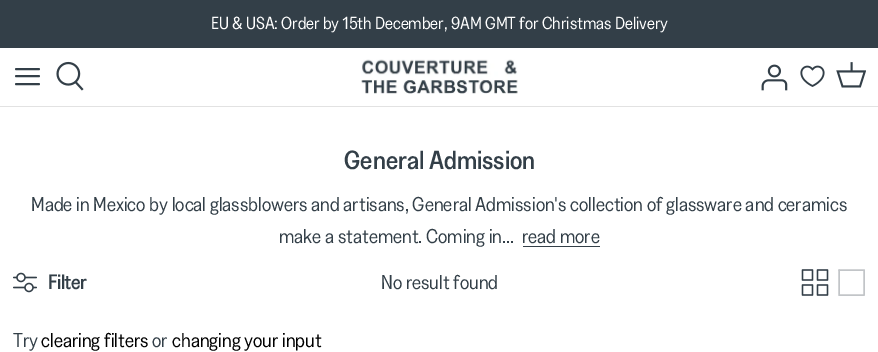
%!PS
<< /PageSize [878 352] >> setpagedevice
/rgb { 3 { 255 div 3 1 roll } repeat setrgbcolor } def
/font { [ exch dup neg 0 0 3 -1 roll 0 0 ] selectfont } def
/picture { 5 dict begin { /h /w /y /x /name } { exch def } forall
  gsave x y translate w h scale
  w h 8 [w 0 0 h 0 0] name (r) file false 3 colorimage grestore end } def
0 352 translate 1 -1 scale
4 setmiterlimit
255 255 255 rgb
0 0 878 352 rectfill
51 63 72 rgb
0 0 878 48 rectfill
226 226 226 rgb
0 106 878 1 rectfill
51 63 72 rgb
1.9 setlinewidth
1 setlinecap
1 setlinejoin
16 76 moveto 39 76 lineto 16 69 moveto 39 69 lineto 16 84 moveto 39 84 lineto stroke
(img/1.rgb) 56 61 28 30 picture
(img/2.rgb) 361 59 157 35 picture
(img/3.rgb) 761 64 27 27 picture
(img/4.rgb) 800 65 25 22 picture
(img/5.rgb) 836 62 30 26 picture
523 246 77 1 rectfill
(img/6.rgb) 13 272 24 21 picture
(img/7.rgb) 801 269 28 27 picture
194 197 200 rgb
1.6 setlinewidth
839 270 moveto 864 270 lineto 864 295 lineto 839 295 lineto 839 270 lineto stroke
/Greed-Regular 17.5 font
255 255 255 rgb
211 29 moveto (EU & USA: Order by 15th December, 9AM GMT for Christmas Delivery) show
/Greed-Medium 26.25 font
51 63 72 rgb
344 169 moveto (General Admission) show
/Greed-Regular 20 font
[
  [(Made in Mexico by local glassblowers and artisans, General Admission's collection of glassware and ceramics) 31 211]
  [(make a statement. Coming in...) 279 243]
  [(read more) 522 243]
] { aload pop moveto show } forall
/Greed-Bold 20 font
48 289 moveto (Filter) show
/Greed-Regular 20 font
381 289 moveto (No result found) show
13 347 moveto (Try) show
0 0 0 rgb
41 347 moveto (clearing filters) show
51 63 72 rgb
152 347 moveto (or) show
0 0 0 rgb
172 347 moveto (changing your input) show
showpage
